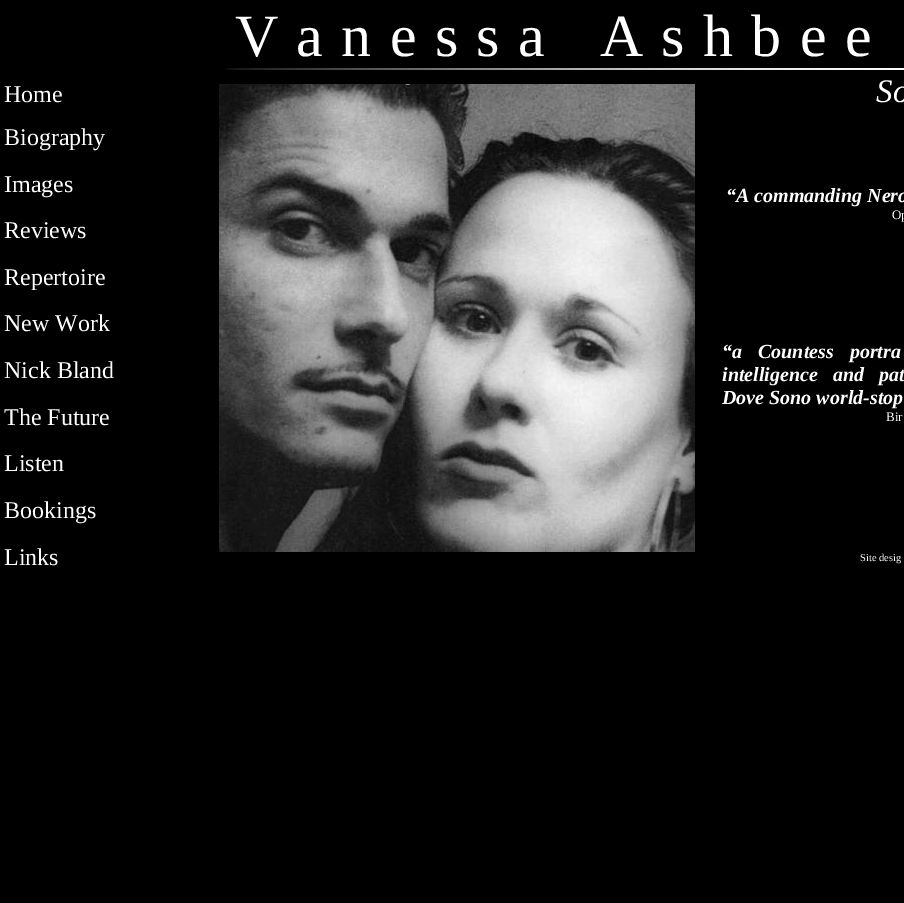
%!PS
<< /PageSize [904 903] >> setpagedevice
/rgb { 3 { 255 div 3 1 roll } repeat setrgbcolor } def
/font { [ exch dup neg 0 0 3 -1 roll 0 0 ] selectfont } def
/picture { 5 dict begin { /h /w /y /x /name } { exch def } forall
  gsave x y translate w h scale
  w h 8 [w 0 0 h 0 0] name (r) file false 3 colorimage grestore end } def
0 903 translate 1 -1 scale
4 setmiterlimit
0 0 0 rgb
0 0 904 903 rectfill
(img/1.rgb) 225 68 679 2 picture
(img/2.rgb) 219 84 476 468 picture
/LiberationSerif-Regular 60 font
255 255 255 rgb
[
  [(V) 235 56]
  [(a) 296 56]
  [(n) 341 56]
  [(e) 390 56]
  [(s) 435 56]
  [(s) 476 56]
  [(a) 518 56]
  [(A) 600 56]
  [(s) 661 56]
  [(h) 703 56]
  [(b) 751 56]
  [(e) 800 56]
  [(e) 845 56]
] { aload pop moveto show } forall
/LiberationSerif-Regular 24 font
4 102 moveto (Home) show
/LiberationSerif-Italic 33 font
876 102 moveto (So) show
/LiberationSerif-Regular 24 font
4 145 moveto (Biography) show
4 192 moveto (Images) show
/LiberationSerif-BoldItalic 20 font
726 202 moveto (“A commanding Nero) show
/LiberationSerif-Regular 13 font
892 219 moveto (Op) show
/LiberationSerif-Regular 24 font
[
  [(Reviews) 4 238]
  [(Repertoire) 4 285]
  [(New Work) 4 331]
  [(Nick Bland) 4 378]
] { aload pop moveto show } forall
/LiberationSerif-BoldItalic 20 font
722 358 moveto 11 0 32 (“a Countess portra) widthshow
722 381 moveto 10 0 32 (intelligence and pat) widthshow
722 404 moveto (Dove Sono world-stop) show
/LiberationSerif-Regular 13 font
886 421 moveto (Bir) show
/LiberationSerif-Regular 24 font
[
  [(The Future) 4 425]
  [(Listen) 4 471]
  [(Bookings) 4 518]
  [(Links) 4 565]
] { aload pop moveto show } forall
/LiberationSerif-Regular 10.5 font
860 561 moveto (Site desig) show
showpage
